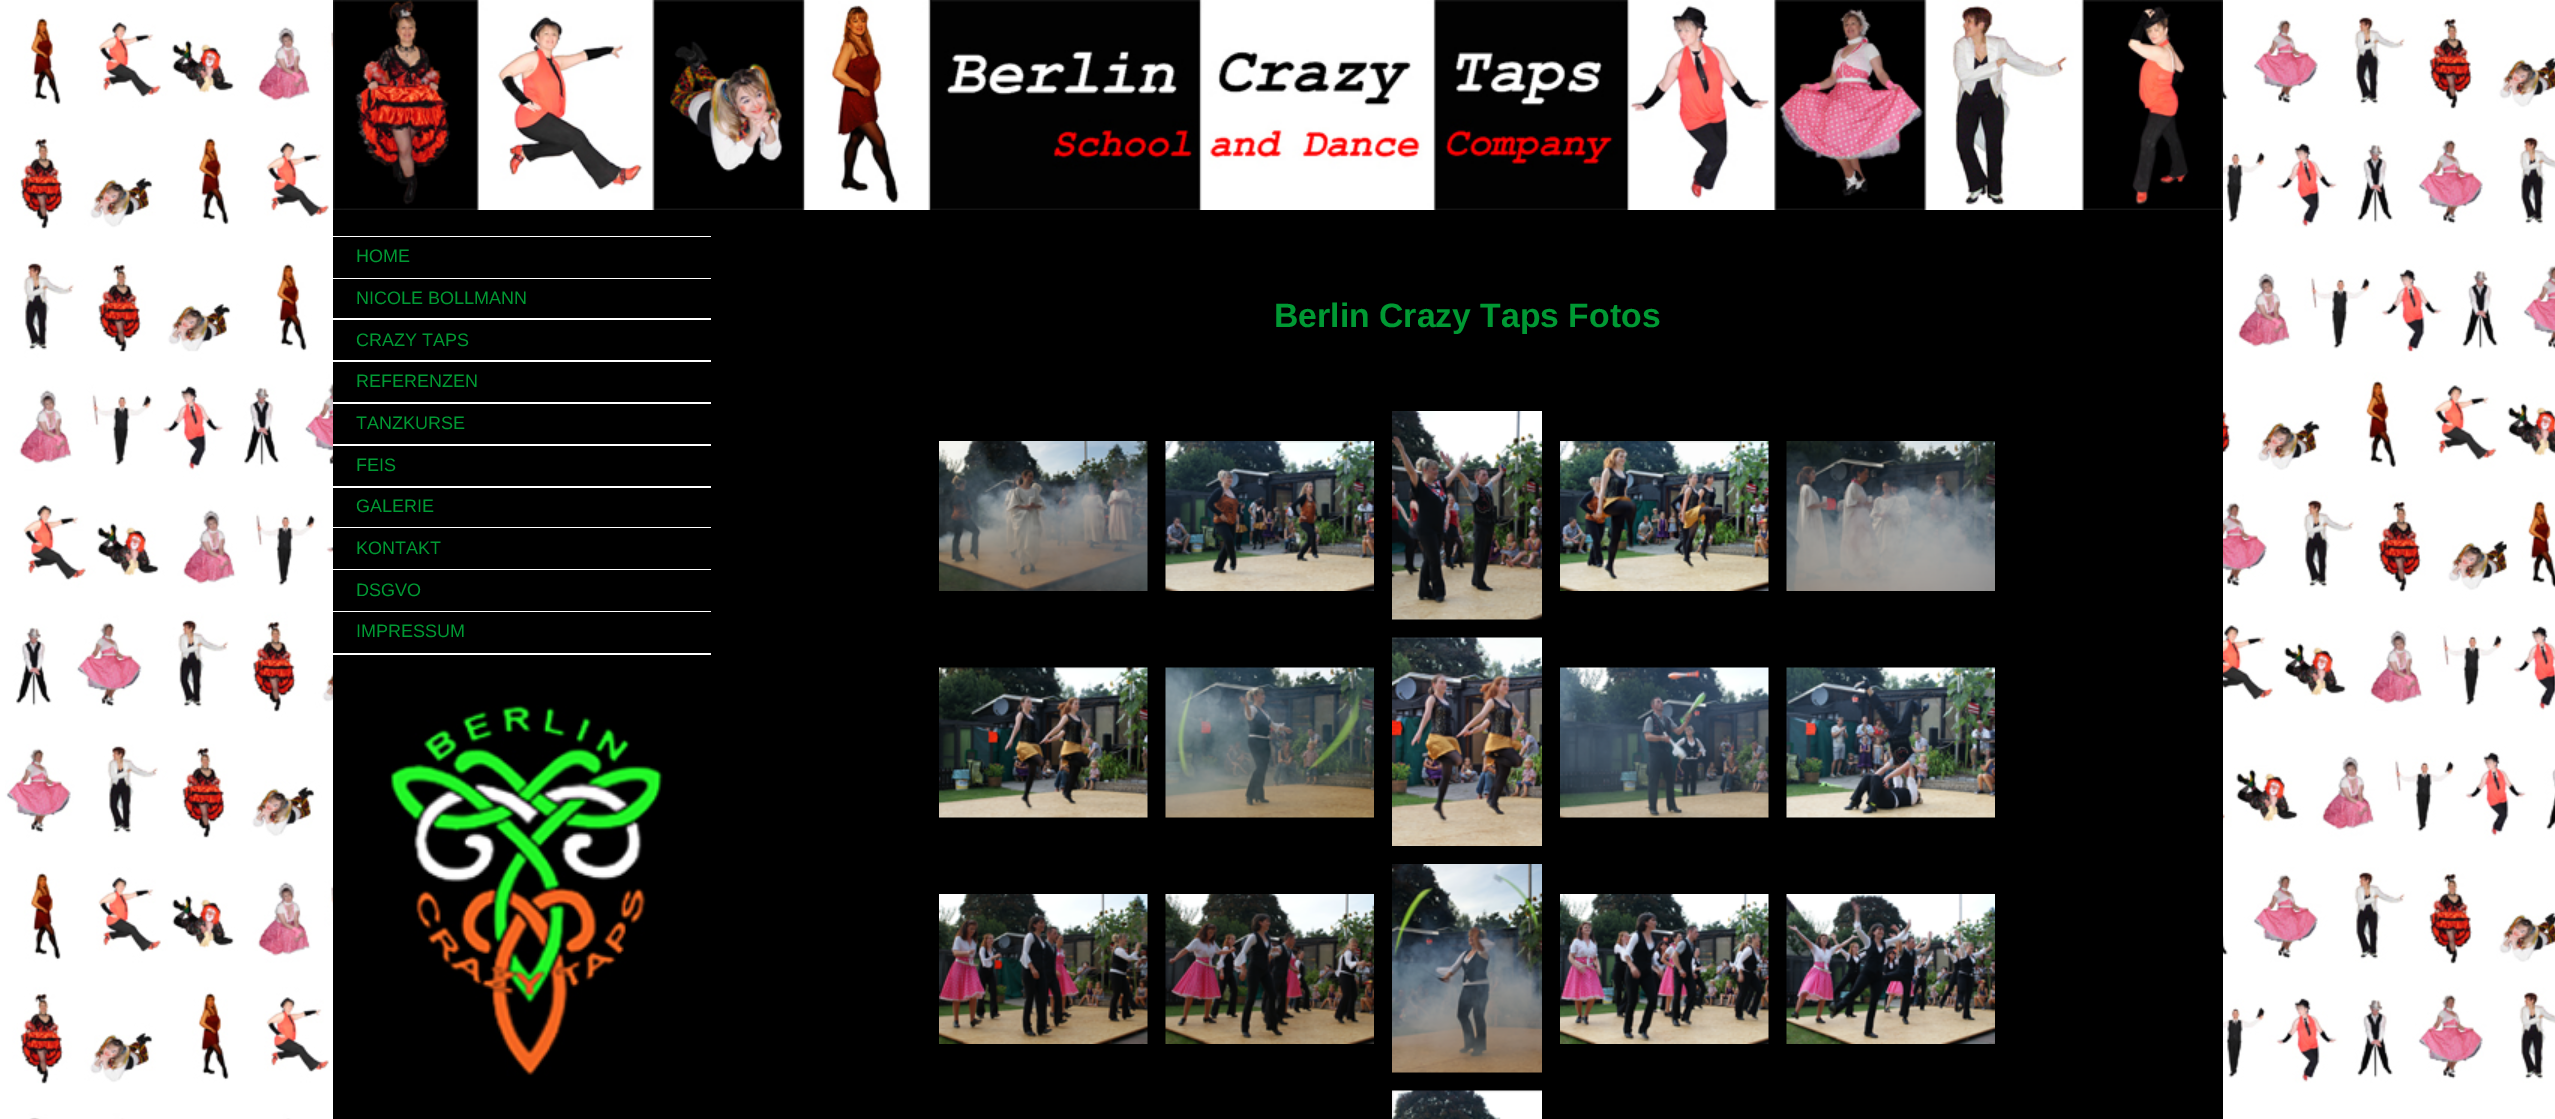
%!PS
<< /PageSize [2555 1119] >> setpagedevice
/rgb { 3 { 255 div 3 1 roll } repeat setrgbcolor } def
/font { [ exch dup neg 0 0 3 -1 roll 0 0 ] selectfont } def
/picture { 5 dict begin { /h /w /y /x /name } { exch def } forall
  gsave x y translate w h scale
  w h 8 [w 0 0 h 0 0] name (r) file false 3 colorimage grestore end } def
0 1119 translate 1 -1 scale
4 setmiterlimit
255 255 255 rgb
0 0 2555 1119 rectfill
(img/1.rgb) 5 14 2550 1105 picture
0 0 0 rgb
333 210 1890 909 rectfill
(img/2.rgb) 333 0 1890 210 picture
[
  [333 236 378 1 255 255 255]
  [333 278 378 1 255 255 255]
  [333 318 378 2 255 255 255]
  [333 360 378 2 255 255 255]
  [333 402 378 2 255 255 255]
  [333 444 378 2 255 255 255]
  [333 486 378 2 255 255 255]
  [333 527 378 1 255 255 255]
  [333 569 378 1 255 255 255]
  [333 611 378 1 255 255 255]
  [333 653 378 2 255 255 255]
] { aload pop rgb rectfill } forall
(img/3.rgb) 389 705 274 371 picture
(img/4.rgb) 939 441 209 150 picture
(img/5.rgb) 1165 441 209 150 picture
(img/6.rgb) 1392 411 150 209 picture
(img/7.rgb) 1560 441 209 150 picture
(img/8.rgb) 1786 441 209 150 picture
(img/9.rgb) 939 667 209 151 picture
(img/10.rgb) 1165 667 209 151 picture
(img/11.rgb) 1392 637 150 209 picture
(img/12.rgb) 1560 667 209 151 picture
(img/13.rgb) 1786 667 209 151 picture
(img/14.rgb) 939 894 209 150 picture
(img/15.rgb) 1165 894 209 150 picture
(img/16.rgb) 1392 864 150 209 picture
(img/17.rgb) 1560 894 209 150 picture
(img/18.rgb) 1786 894 209 150 picture
(img/19.rgb) 1392 1090 150 29 picture
/LiberationSans-Regular 18 font
0 153 51 rgb
[
  [(HOME) 356 262]
  [(NICOLE BOLLMANN) 356 304]
  [(CRAZY TAPS) 356 346]
  [(REFERENZEN) 356 387]
  [(TANZKURSE) 356 429]
  [(FEIS) 356 471]
  [(GALERIE) 356 512]
  [(KONTAKT) 356 554]
  [(DSGVO) 356 596]
  [(IMPRESSUM) 356 637]
] { aload pop moveto show } forall
/LiberationSans-Bold 33.75 font
1274 327 moveto (Berlin Crazy Taps Fotos) show
showpage
